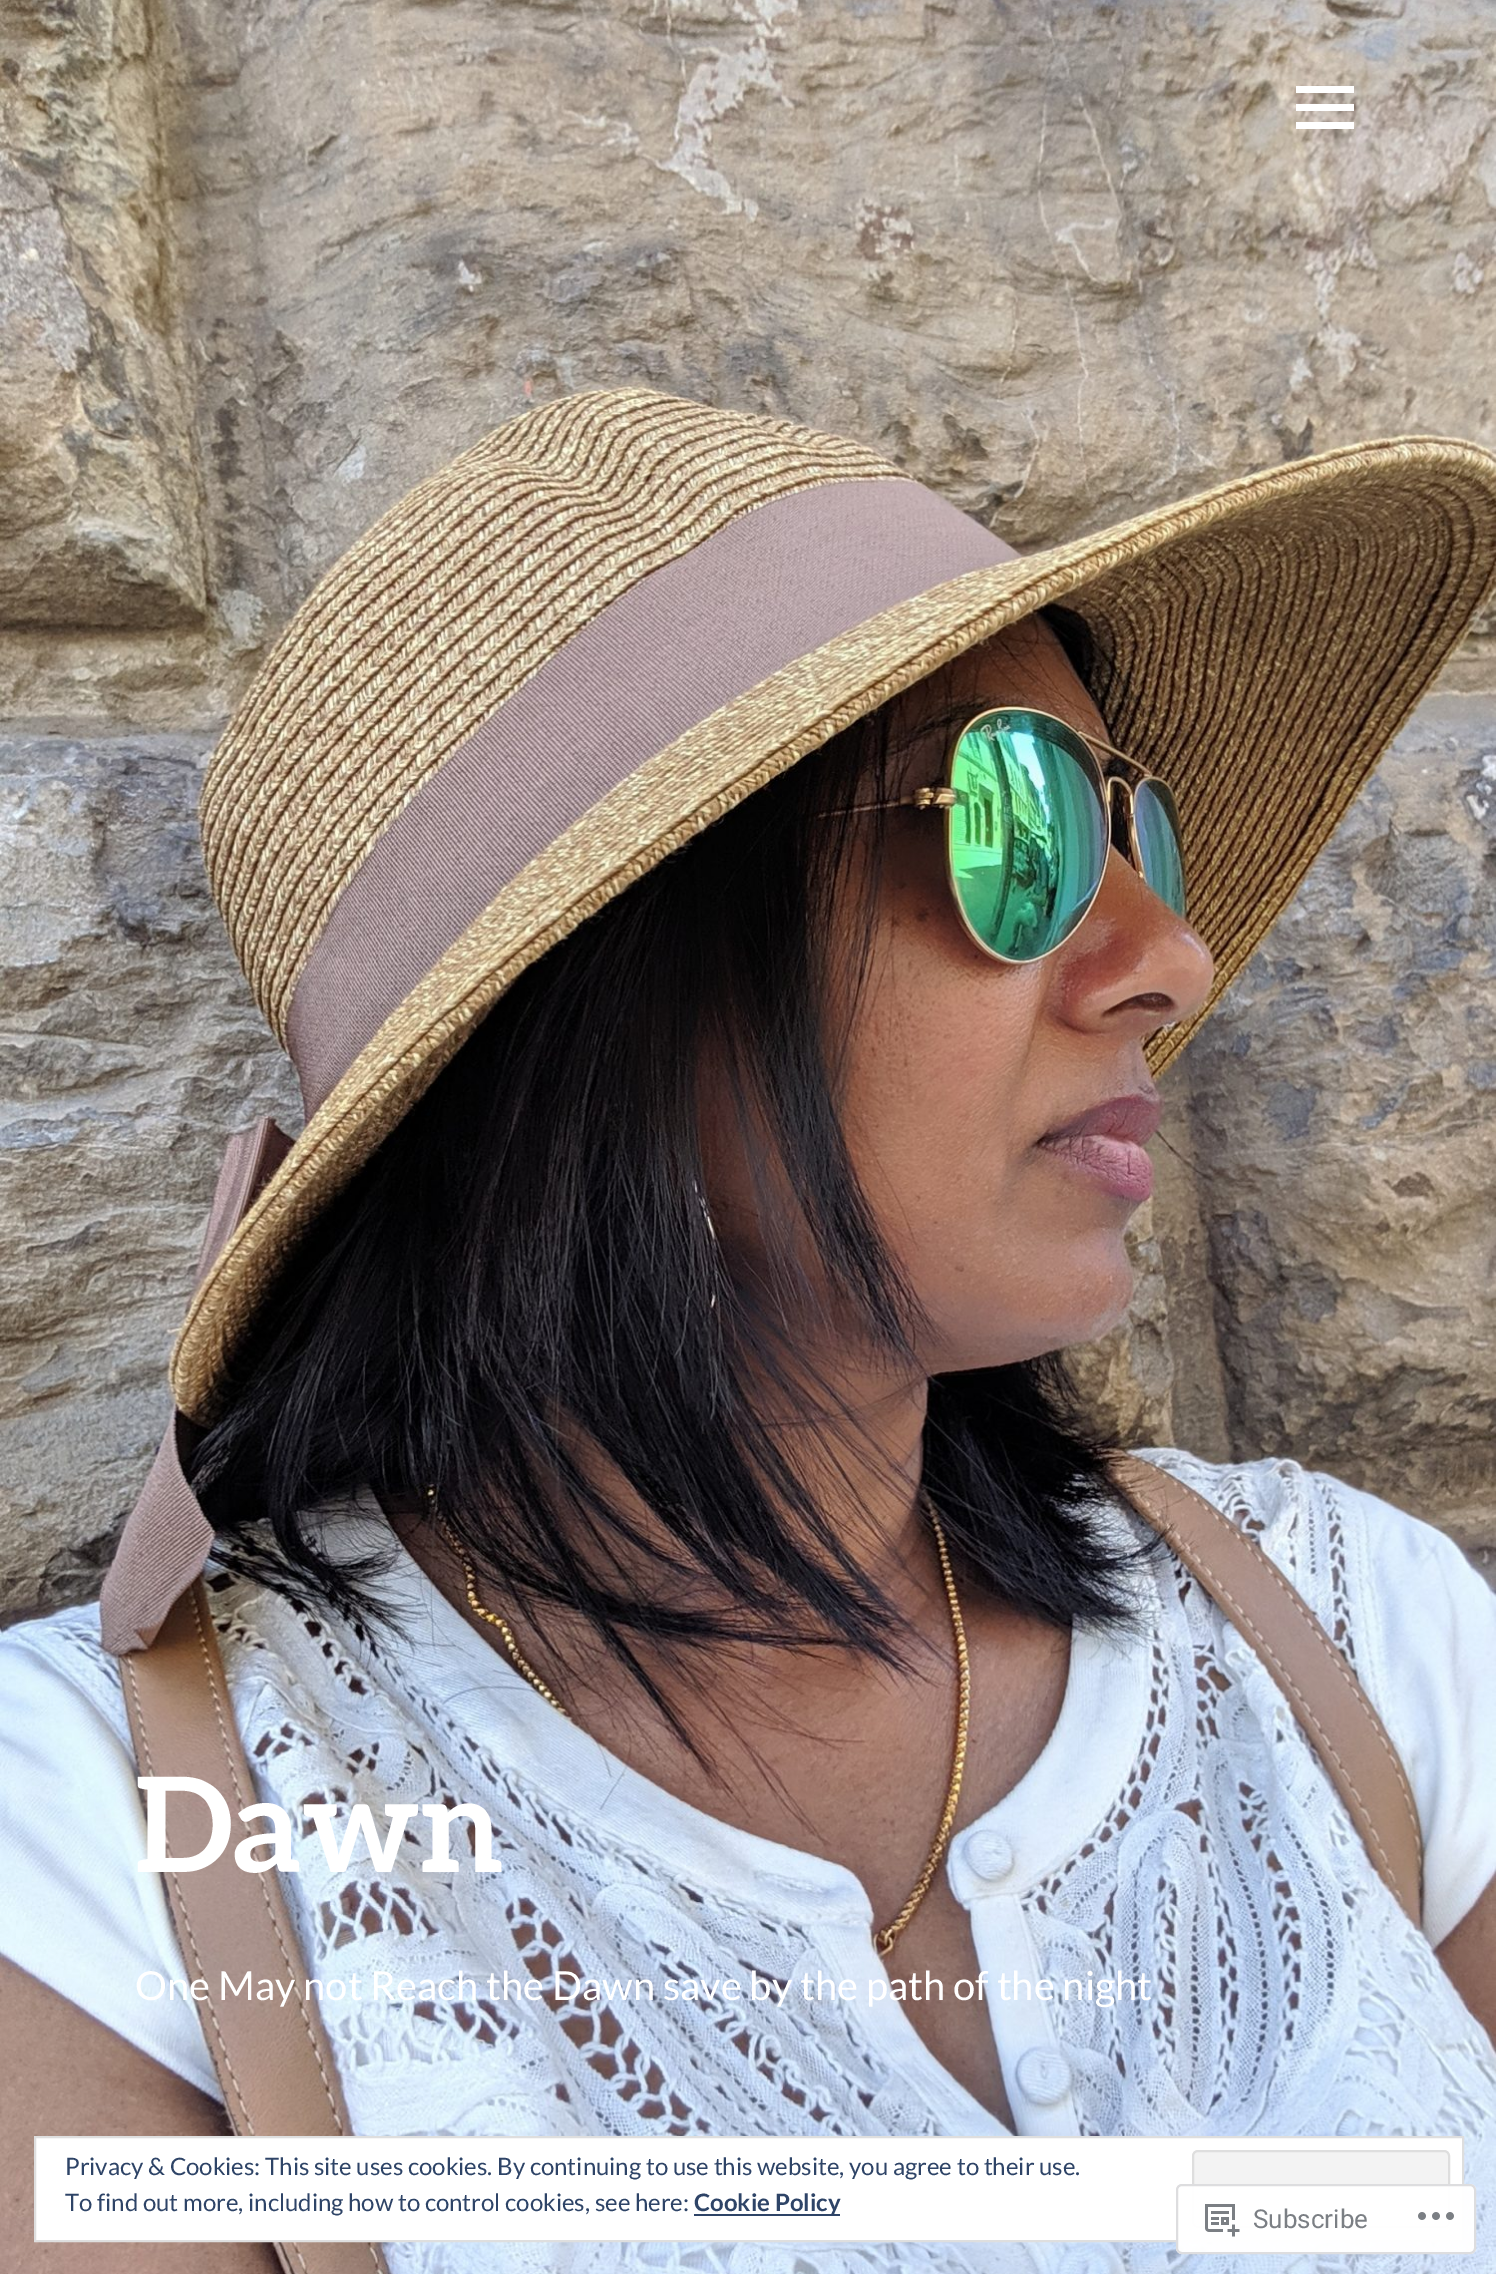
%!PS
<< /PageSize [1496 2274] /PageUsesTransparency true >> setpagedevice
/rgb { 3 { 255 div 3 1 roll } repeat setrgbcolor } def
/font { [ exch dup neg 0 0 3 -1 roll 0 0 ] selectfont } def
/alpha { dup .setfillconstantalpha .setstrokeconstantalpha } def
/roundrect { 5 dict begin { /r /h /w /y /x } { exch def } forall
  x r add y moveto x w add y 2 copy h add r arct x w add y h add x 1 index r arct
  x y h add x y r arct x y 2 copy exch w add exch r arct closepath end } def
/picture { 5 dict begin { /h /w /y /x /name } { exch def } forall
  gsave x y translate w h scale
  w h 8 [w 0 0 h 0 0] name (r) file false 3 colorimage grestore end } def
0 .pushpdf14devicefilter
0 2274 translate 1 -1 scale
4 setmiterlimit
255 255 255 rgb
0 0 1496 2274 rectfill
(img/1.rgb) 0 0 1496 2274 picture
1296 129 moveto 1296 122 lineto 1354 122 lineto 1354 129 lineto closepath 1296 86 moveto 1354 86 lineto 1354 93 lineto 1296 93 lineto closepath 1296 111 moveto 1296 104 lineto 1354 104 lineto 1354 111 lineto closepath fill
35 2137 moveto 1463 2137 lineto 1463 2241 lineto 35 2241 lineto closepath gsave fill grestore
222 222 222 rgb
2 setlinewidth
stroke
243 243 243 rgb
1193 2151 256 76 5 roundrect gsave fill grestore
222 222 222 rgb
stroke
46 68 103 rgb
694 2214 146 2 rectfill
0.98 alpha
255 255 255 rgb
1176 2184 300 70 6 roundrect fill
220 220 222 rgb
1177 2185 298 68 5 roundrect stroke
1 alpha
(img/2.rgb) 1205 2204 35 33 picture
(img/3.rgb) 1418 2212 36 8 picture
/Aleo-Bold 132 font
255 255 255 rgb
135 1872 moveto (Dawn) show
/Lato-Regular 40 font
135 2000 moveto (One May not Reach the Dawn save by the path of the night) show
/Lato-Regular 24 font
46 68 103 rgb
65 2175 moveto (Privacy & Cookies: This site uses cookies. By continuing to use this website, you agree to their use.) show
65 2211 moveto (To find out more, including how to control cookies, see here:) show
/Lato-Bold 24 font
694 2211 moveto (Cookie Policy) show
/Roboto-Regular 26 font
123 127 132 rgb
1253 2228 moveto (Subscribe) show
.poppdf14devicefilter showpage
